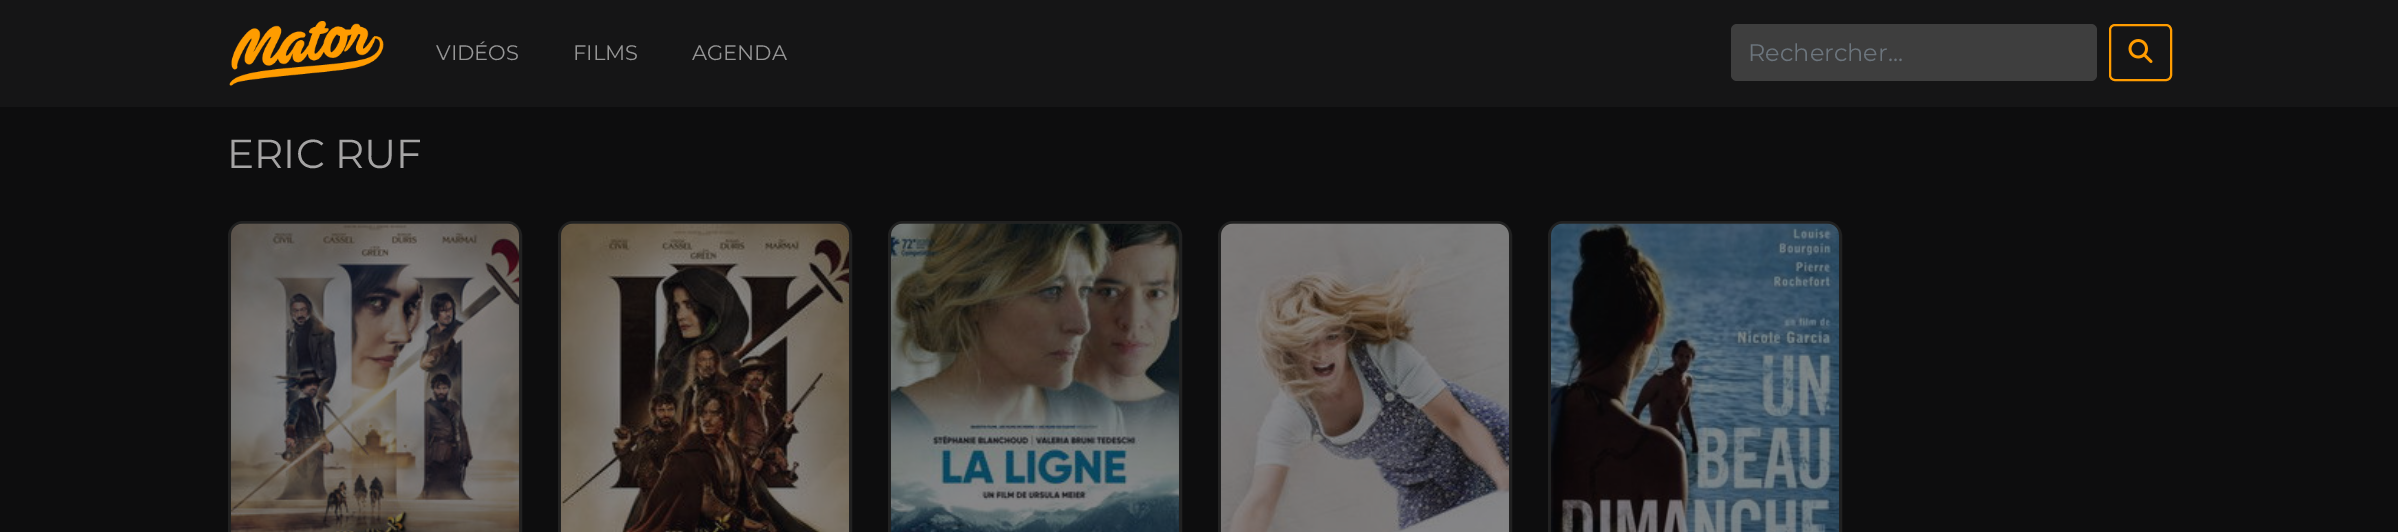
%!PS
<< /PageSize [2398 532] >> setpagedevice
/rgb { 3 { 255 div 3 1 roll } repeat setrgbcolor } def
/font { [ exch dup neg 0 0 3 -1 roll 0 0 ] selectfont } def
/roundrect { 5 dict begin { /r /h /w /y /x } { exch def } forall
  x r add y moveto x w add y 2 copy h add r arct x w add y h add x 1 index r arct
  x y h add x y r arct x y 2 copy exch w add exch r arct closepath end } def
/picture { 5 dict begin { /h /w /y /x /name } { exch def } forall
  gsave x y translate w h scale
  w h 8 [w 0 0 h 0 0] name (r) file false 3 colorimage grestore end } def
0 532 translate 1 -1 scale
4 setmiterlimit
13 13 14 rgb
0 0 2398 532 rectfill
21 21 22 rgb
0 0 2398 107 rectfill
(img/1.rgb) 229 21 155 65 picture
62 62 62 rgb
1731 24 366 57 6 roundrect fill
255 156 0 rgb
2 setlinewidth
2110 25 61 55 5 roundrect stroke
(img/2.rgb) 2128 39 25 24 picture
33 33 33 rgb
3 setlinewidth
229.5 222.5 291 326 13.5 roundrect stroke
(img/3.rgb) 231 223 288 309 picture
559.5 222.5 291 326 13.5 roundrect stroke
(img/4.rgb) 561 223 288 309 picture
889.5 222.5 291 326 13.5 roundrect stroke
(img/5.rgb) 891 223 288 309 picture
1219.5 222.5 291 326 13.5 roundrect stroke
(img/6.rgb) 1221 223 288 309 picture
1549.5 222.5 291 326 13.5 roundrect stroke
(img/7.rgb) 1551 223 288 309 picture
/Montserrat-Regular 21 font
150 150 150 rgb
[
  [(VIDÉOS) 436 60]
  [(FILMS) 573 60]
  [(AGENDA) 692 60]
] { aload pop moveto show } forall
/Montserrat-Regular 24 font
108 117 125 rgb
1748 61 moveto (Rechercher...) show
/Montserrat-Regular 40.5 font
165 164 164 rgb
227 168 moveto (ERIC RUF) show
showpage
